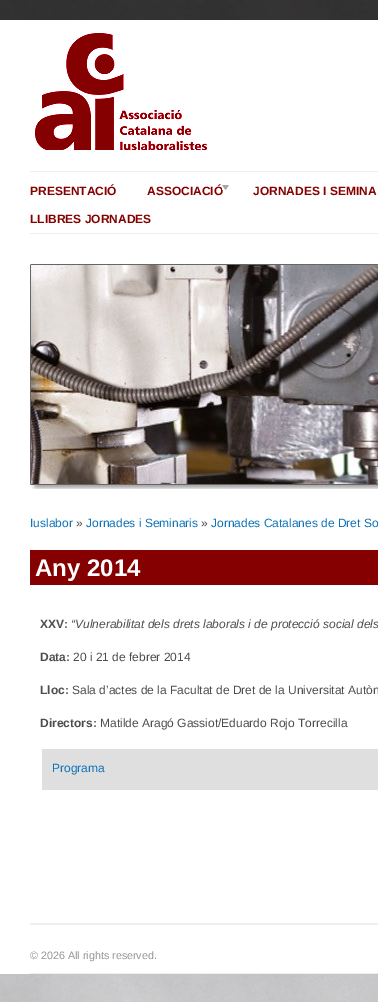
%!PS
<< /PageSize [378 1002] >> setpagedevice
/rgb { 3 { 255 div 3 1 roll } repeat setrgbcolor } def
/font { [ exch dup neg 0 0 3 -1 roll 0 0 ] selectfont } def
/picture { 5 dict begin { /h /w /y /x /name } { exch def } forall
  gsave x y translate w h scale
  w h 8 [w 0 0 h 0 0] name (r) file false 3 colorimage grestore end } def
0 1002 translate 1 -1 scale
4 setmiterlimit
255 255 255 rgb
0 0 378 1002 rectfill
(img/1.rgb) 0 0 378 1002 picture
0 20 378 954 rectfill
(img/2.rgb) 35 33 172 117 picture
238 238 238 rgb
30 171 348 1 rectfill
30 233 348 1 rectfill
(img/5.rgb) 30 264 348 225 picture
[
  [30 973 348 1 238 238 238]
  [30 550 348 35 133 0 0]
  [42 749 336 41 223 223 223]
  [30 923 348 2 237 238 239]
] { aload pop rgb rectfill } forall
/LiberationSans-Bold 12 font
133 0 0 rgb
30 195 moveto (PRESENTACIÓ) show
147 195 moveto (ASSOCIACIÓ) show
(img/3.rgb) 222 185 7 5 picture
(img/4.rgb) 222 185 7 5 picture
253 195 moveto (JORNADES I SEMINA) show
30 223 moveto (LLIBRES JORNADES) show
/LiberationSans-Regular 12 font
14 115 184 rgb
30 527 moveto (Iuslabor) show
77 77 79 rgb
76 527 moveto (») show
14 115 184 rgb
86 527 moveto (Jornades i Seminaris) show
77 77 79 rgb
201 527 moveto (») show
14 115 184 rgb
211 527 moveto (Jornades Catalanes de Dret So) show
/LiberationSans-Bold 24 font
255 255 255 rgb
35 576 moveto (Any 2014) show
/LiberationSans-Bold 12 font
77 77 79 rgb
40 628 moveto (XXV:) show
/LiberationSans-Italic 12 font
71 628 moveto (“Vulnerabilitat dels drets laborals i de protecció social dels) show
/LiberationSans-Bold 12 font
40 661 moveto (Data:) show
/LiberationSans-Regular 12 font
73 661 moveto (20 i 21 de febrer 2014) show
/LiberationSans-Bold 12 font
40 694 moveto (Lloc:) show
/LiberationSans-Regular 12 font
72 694 moveto (Sala d’actes de la Facultat de Dret de la Universitat Autòn) show
/LiberationSans-Bold 12 font
40 727 moveto (Directors:) show
/LiberationSans-Regular 12 font
100 727 moveto (Matilde Aragó Gassiot/Eduardo Rojo Torrecilla) show
14 115 184 rgb
52 772 moveto (Programa) show
/LiberationSans-Regular 10.75 font
150 150 150 rgb
30 959 moveto (© 2026 All rights reserved.) show
showpage
